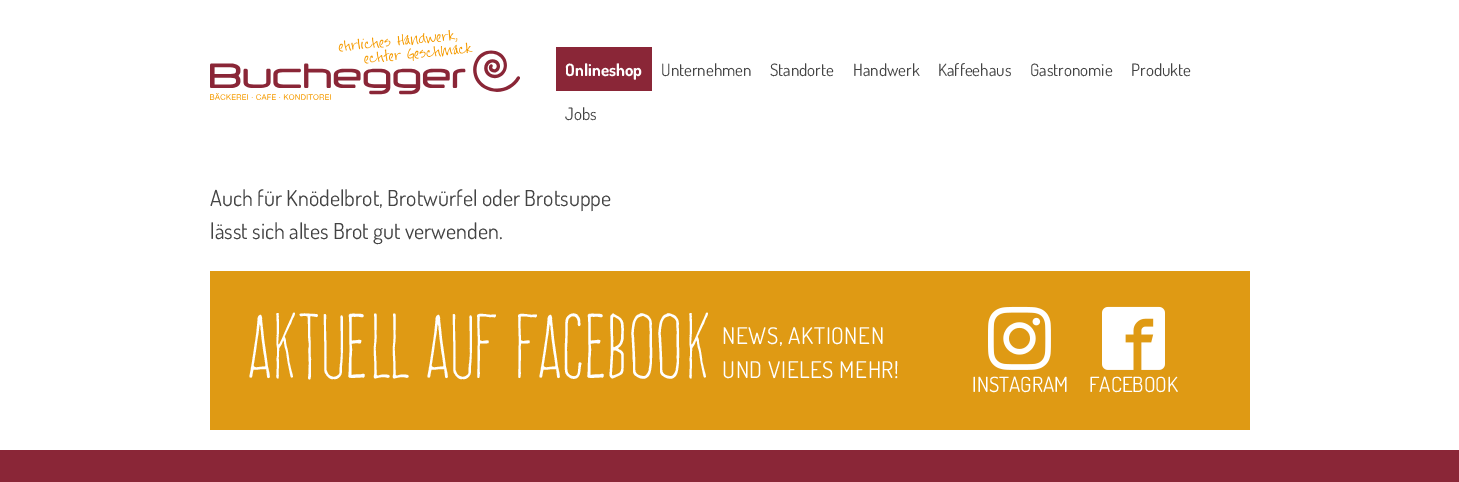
%!PS
<< /PageSize [1459 482] >> setpagedevice
/rgb { 3 { 255 div 3 1 roll } repeat setrgbcolor } def
/font { [ exch dup neg 0 0 3 -1 roll 0 0 ] selectfont } def
/picture { 5 dict begin { /h /w /y /x /name } { exch def } forall
  gsave x y translate w h scale
  w h 8 [w 0 0 h 0 0] name (r) file false 3 colorimage grestore end } def
0 482 translate 1 -1 scale
4 setmiterlimit
255 255 255 rgb
0 0 1459 482 rectfill
(img/1.rgb) 210 30 310 70 picture
138 38 55 rgb
556 47 96 44 rectfill
223 154 20 rgb
210 271 1040 159 rectfill
(img/2.rgb) 988 306 63 64 picture
(img/3.rgb) 1102 306 63 64 picture
138 38 55 rgb
0 450 1459 32 rectfill
/Dosis-Bold 17 font
255 255 255 rgb
565 76 moveto (Onlineshop) show
/Dosis-Regular 17 font
68 68 68 rgb
[
  [(Unternehmen) 661 76]
  [(Standorte) 770 76]
  [(Handwerk) 853 76]
  [(Kaffeehaus) 938 76]
  [(Gastronomie) 1030 76]
  [(Produkte) 1131 76]
  [(Jobs) 565 120]
] { aload pop moveto show } forall
/Dosis-Regular 22 font
210 206 moveto (Auch für Knödelbrot, Brotwürfel oder Brotsuppe) show
210 239 moveto (lässt sich altes Brot gut verwenden.) show
/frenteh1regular-Regular 80 font
255 255 255 rgb
246 378 moveto (Aktuell auf Facebook) show
/Dosis-Regular 23 font
722 344 moveto 0.6 0 (NEWS, AKTIONEN) ashow
722 378 moveto 0.6 0 (UND VIELES MEHR!) ashow
/Dosis-Regular 21 font
972 392 moveto (INSTAGRAM) show
1089 392 moveto (FACEBOOK) show
showpage
